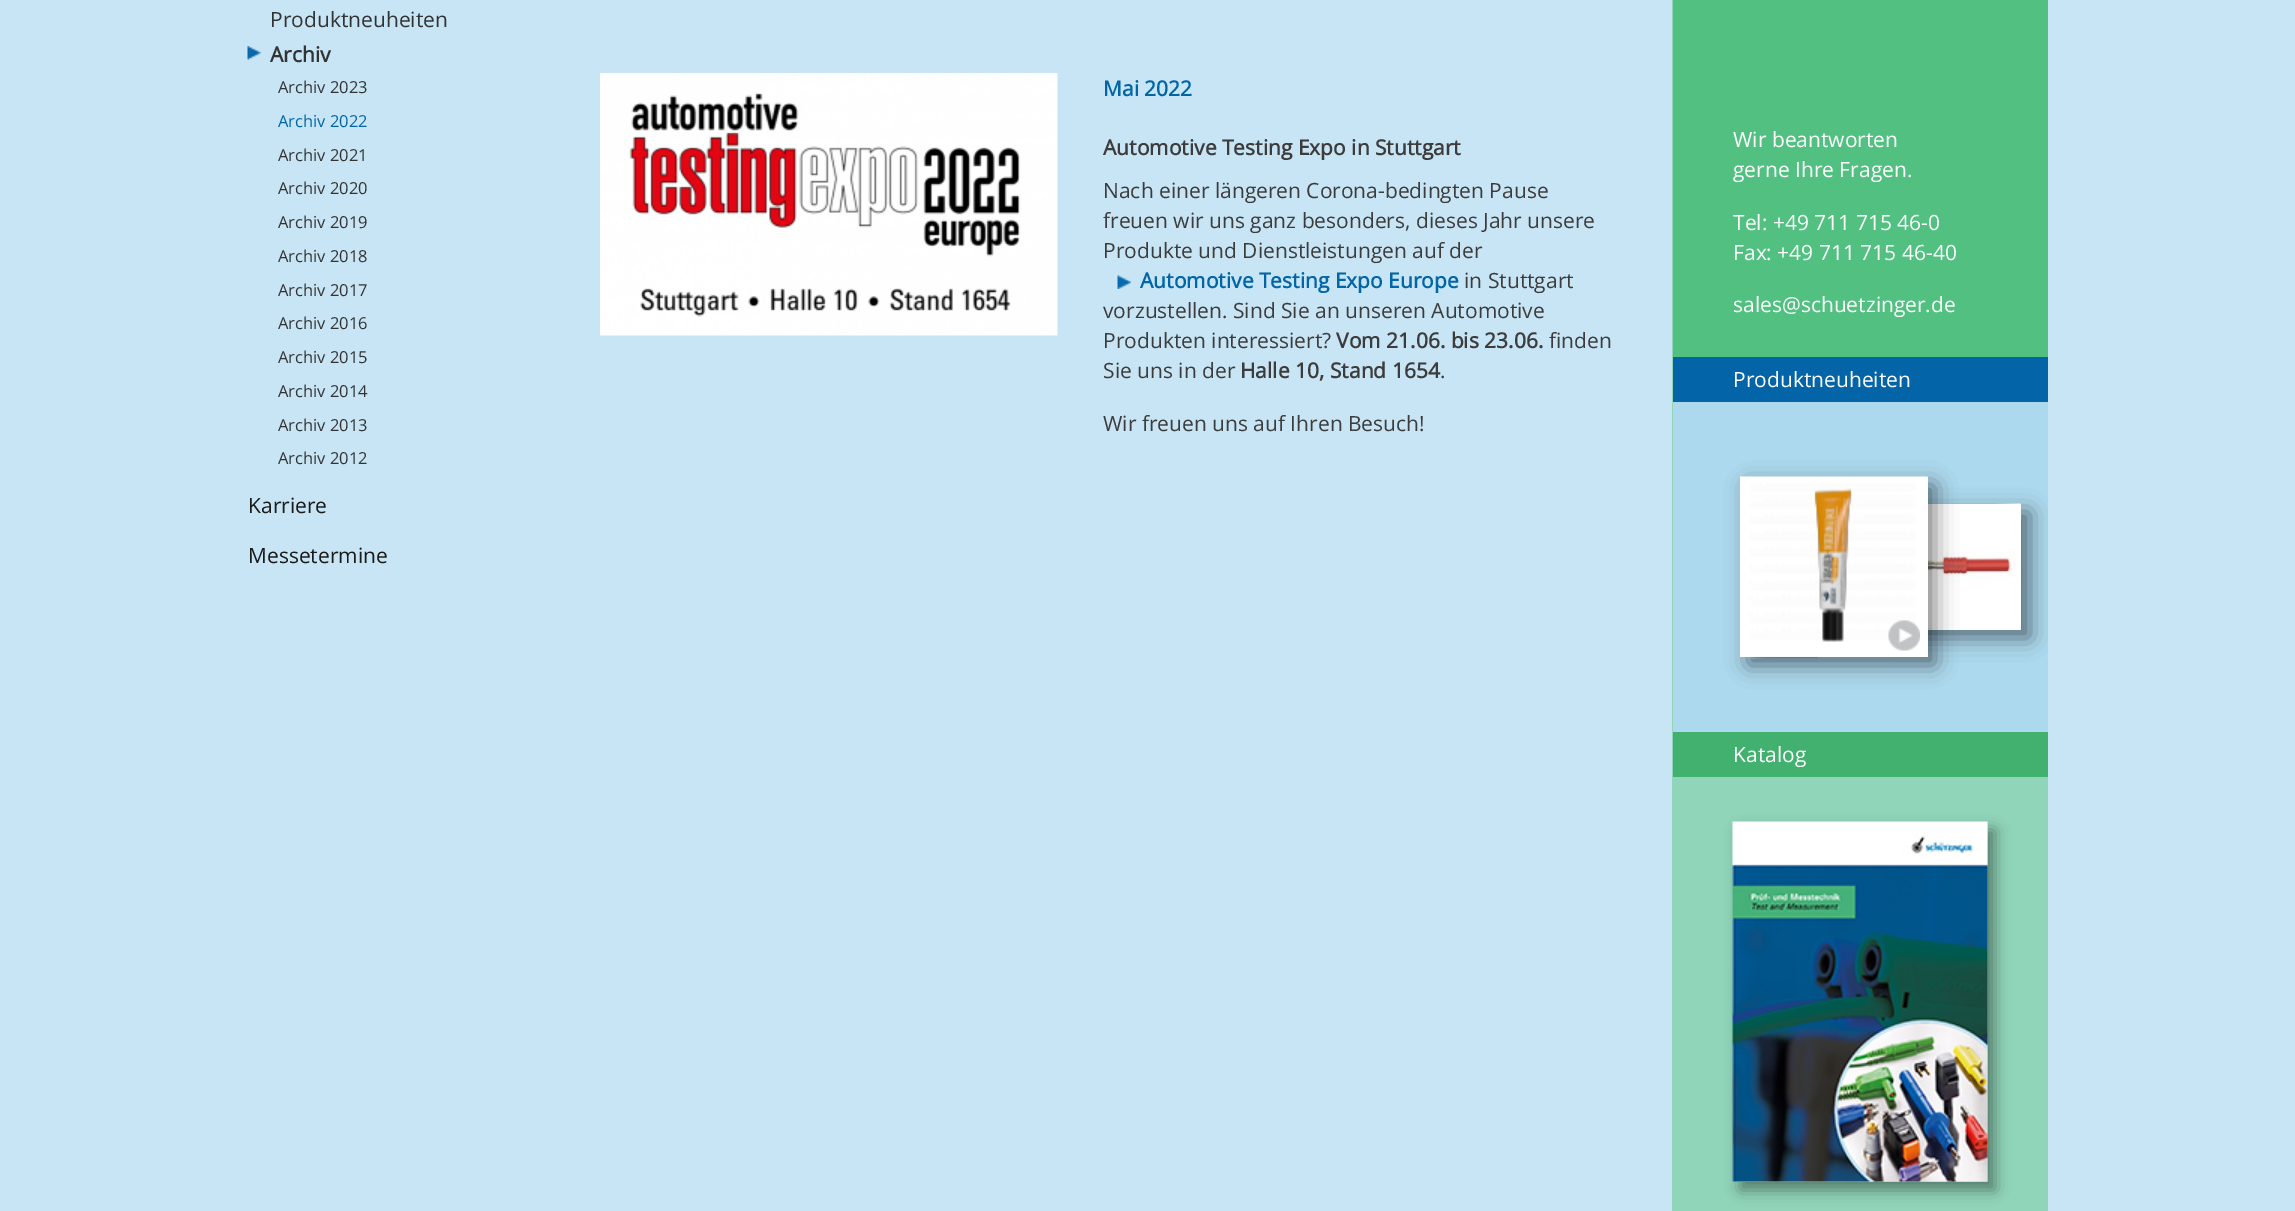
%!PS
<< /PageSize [2295 1211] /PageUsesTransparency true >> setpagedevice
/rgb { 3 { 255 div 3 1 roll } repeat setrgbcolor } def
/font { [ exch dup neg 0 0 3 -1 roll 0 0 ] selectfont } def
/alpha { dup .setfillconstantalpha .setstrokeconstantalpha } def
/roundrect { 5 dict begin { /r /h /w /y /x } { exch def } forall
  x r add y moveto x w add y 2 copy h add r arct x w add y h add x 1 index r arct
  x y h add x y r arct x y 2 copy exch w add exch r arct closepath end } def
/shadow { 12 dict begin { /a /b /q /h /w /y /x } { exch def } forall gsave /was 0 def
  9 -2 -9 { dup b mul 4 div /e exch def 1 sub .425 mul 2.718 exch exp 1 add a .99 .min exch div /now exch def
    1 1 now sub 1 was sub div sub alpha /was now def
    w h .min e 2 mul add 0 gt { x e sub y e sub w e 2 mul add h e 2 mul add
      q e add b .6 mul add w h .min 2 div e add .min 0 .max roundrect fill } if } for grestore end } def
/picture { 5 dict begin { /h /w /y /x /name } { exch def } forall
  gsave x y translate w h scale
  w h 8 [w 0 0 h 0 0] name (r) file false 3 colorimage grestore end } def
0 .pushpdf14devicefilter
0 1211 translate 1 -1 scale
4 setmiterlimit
199 229 245 rgb
0 0 2295 1211 rectfill
144 213 185 rgb
1672 0 376 1211 rectfill
(img/1.rgb) 247 46 14 14 picture
(img/2.rgb) 600 73 458 263 picture
(img/3.rgb) 1117 275 14 14 picture
[
  [1673 0 375 357 81 192 128]
  [1673 402 375 330 173 217 239]
  [1673 357 375 45 3 100 168]
] { aload pop rgb rectfill } forall
gsave
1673 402 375 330 rectclip
0 0 0 rgb
1898 512 132 126 0 11 0.5 shadow
grestore
255 255 255 rgb
1928 504 93 126 rectfill
(img/7.rgb) 1928 503 93 81 picture
(img/8.rgb) 1928 628 5 1 picture
0 0 0 rgb
1748 485 187 180 0 11 0.5 shadow
255 255 255 rgb
1740 477 188 180 rectfill
(img/4.rgb) 1740 476 188 166 picture
(img/5.rgb) 1888 620 32 31 picture
(img/6.rgb) 1748 656 70 3 picture
66 176 110 rgb
1673 732 375 45 rectfill
0 0 0 rgb
1740 830 255 360 0 7.5 0.4 shadow
(img/9.rgb) 1732 821 256 361 picture
/OpenSans-Regular 21 font
51 51 51 rgb
270 27 moveto (Produktneuheiten) show
/OpenSans-Bold 21 font
270 62 moveto (Archiv) show
/OpenSans-Regular 16.5 font
278 93 moveto (Archiv 2023) show
1 101 166 rgb
278 127 moveto (Archiv 2022) show
51 51 51 rgb
[
  [(Archiv 2021) 278 161]
  [(Archiv 2020) 278 194]
  [(Archiv 2019) 278 228]
  [(Archiv 2018) 278 262]
  [(Archiv 2017) 278 296]
  [(Archiv 2016) 278 329]
  [(Archiv 2015) 278 363]
  [(Archiv 2014) 278 397]
  [(Archiv 2013) 278 431]
  [(Archiv 2012) 278 464]
] { aload pop moveto show } forall
/OpenSans-Regular 21 font
26 26 24 rgb
248 513 moveto (Karriere) show
248 563 moveto (Messetermine) show
/OpenSans-Bold 21 font
1 101 166 rgb
1103 96 moveto (Mai 2022) show
60 60 60 rgb
1103 155 moveto (Automotive Testing Expo in Stuttgart) show
/OpenSans-Regular 21 font
[
  [(Nach einer längeren Corona-bedingten Pause) 1103 198]
  [(freuen wir uns ganz besonders, dieses Jahr unsere) 1103 228]
  [(Produkte und Dienstleistungen auf der) 1103 258]
] { aload pop moveto show } forall
/OpenSans-Bold 21 font
1 101 166 rgb
1140 288 moveto (Automotive Testing Expo Europe) show
/OpenSans-Regular 21 font
60 60 60 rgb
[
  [(in Stuttgart) 1464 288]
  [(vorzustellen. Sind Sie an unseren Automotive) 1103 318]
  [(Produkten interessiert?) 1103 348]
] { aload pop moveto show } forall
/OpenSans-Bold 21 font
1336 348 moveto (Vom 21.06. bis 23.06.) show
/OpenSans-Regular 21 font
1549 348 moveto (finden) show
1103 378 moveto (Sie uns in der) show
/OpenSans-Bold 21 font
1240 378 moveto (Halle 10, Stand 1654) show
/OpenSans-Regular 21 font
1440 378 moveto (.) show
1103 431 moveto (Wir freuen uns auf Ihren Besuch!) show
255 255 255 rgb
[
  [(Wir beantworten) 1733 147]
  [(gerne Ihre Fragen.) 1733 177]
  [(Tel: +49 711 715 46-0) 1733 230]
  [(Fax: +49 711 715 46-40) 1733 260]
  [(sales@schuetzinger.de) 1733 312]
  [(Produktneuheiten) 1733 387]
  [(Katalog) 1733 762]
] { aload pop moveto show } forall
.poppdf14devicefilter showpage
